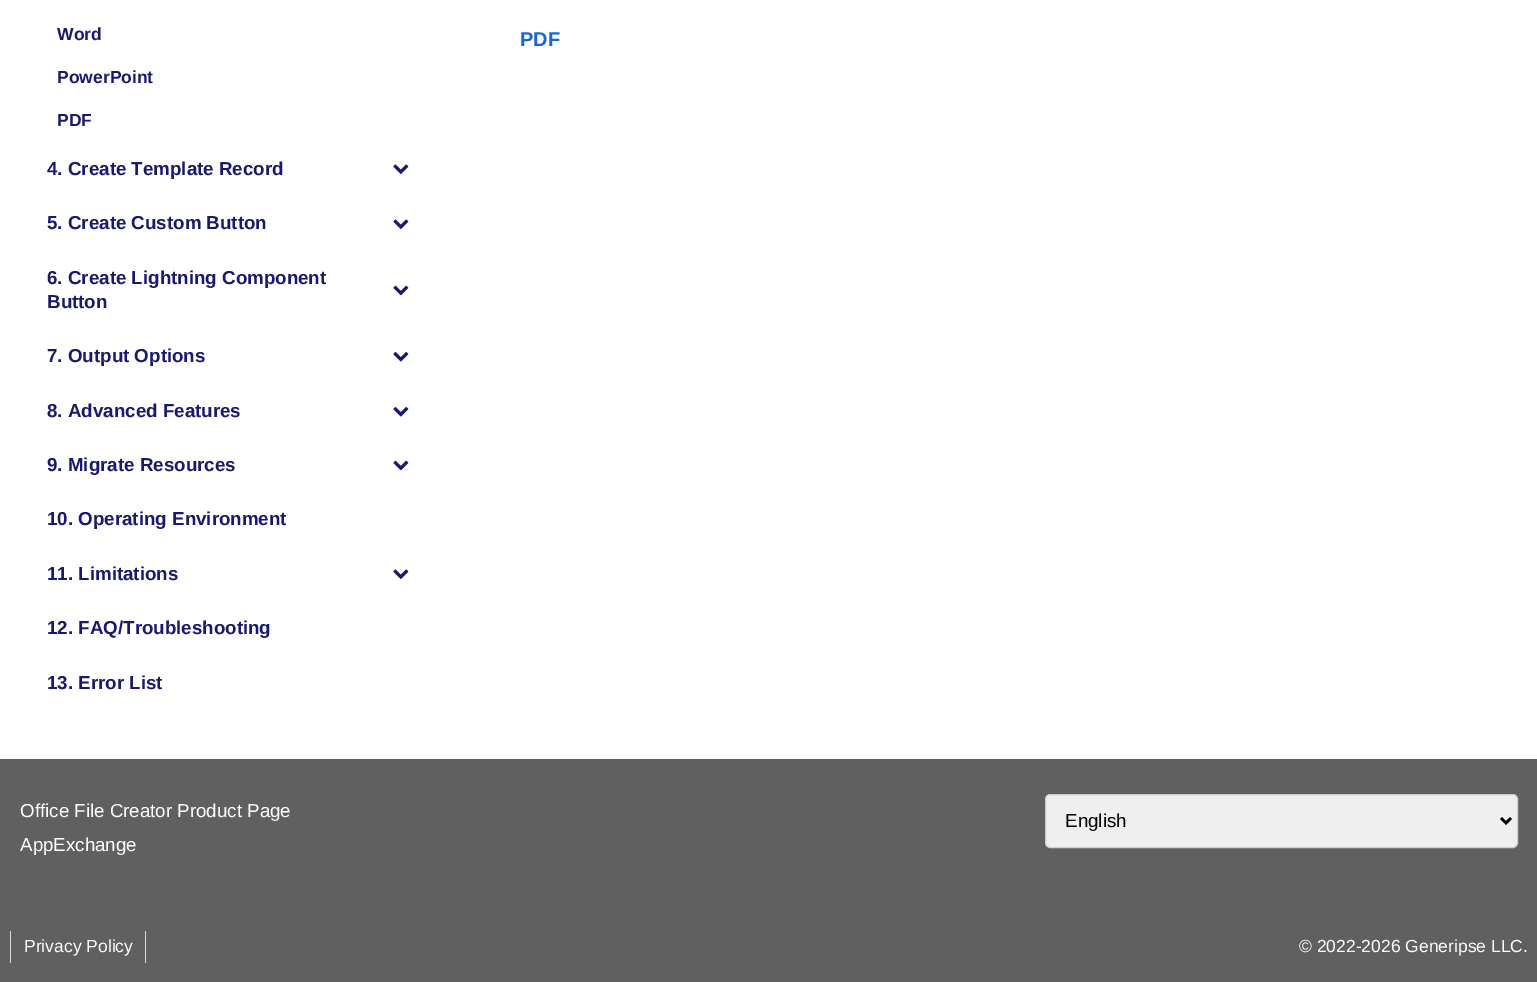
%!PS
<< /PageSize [1537 982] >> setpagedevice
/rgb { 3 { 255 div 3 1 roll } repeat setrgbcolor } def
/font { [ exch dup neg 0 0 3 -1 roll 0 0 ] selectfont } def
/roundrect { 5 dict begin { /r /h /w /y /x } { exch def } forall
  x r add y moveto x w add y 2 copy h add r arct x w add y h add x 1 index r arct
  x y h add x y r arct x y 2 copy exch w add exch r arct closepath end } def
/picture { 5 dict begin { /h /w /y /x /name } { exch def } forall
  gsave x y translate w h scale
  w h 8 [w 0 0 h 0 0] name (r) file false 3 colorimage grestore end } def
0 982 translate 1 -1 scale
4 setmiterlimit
255 255 255 rgb
0 0 1537 982 rectfill
(img/1.rgb) 393 164 16 10 picture
(img/1.rgb) 393 219 16 10 picture
(img/2.rgb) 393 285 16 11 picture
(img/3.rgb) 393 352 16 10 picture
(img/3.rgb) 393 407 16 10 picture
(img/2.rgb) 393 460 16 11 picture
(img/1.rgb) 393 569 16 10 picture
96 96 96 rgb
0 759 1537 223 rectfill
239 239 239 rgb
1045.5 794.5 472 53 4.5 roundrect gsave fill grestore
204 204 204 rgb
stroke
0 0 0 rgb
2.5 setlinewidth
1501 818 moveto 1506 823 lineto 1511 818 lineto stroke
221 221 221 rgb
145 931 1 32 rectfill
10 931 1 32 rectfill
/LiberationSans-Bold 17.5 font
25 25 112 rgb
[
  [(Word) 57 40]
  [(PowerPoint) 57 83]
  [(PDF) 57 126]
] { aload pop moveto show } forall
/LiberationSans-Bold 18.75 font
[
  [(4. Create Template Record) 47 175]
  [(5. Create Custom Button) 47 229]
  [(6. Create Lightning Component) 47 284]
  [(Button) 47 308]
  [(7. Output Options) 47 362]
  [(8. Advanced Features) 47 417]
  [(9. Migrate Resources) 47 471]
  [(10. Operating Environment) 47 525]
  [(11. Limitations) 47 580]
  [(12. FAQ/Troubleshooting) 47 634]
  [(13. Error List) 47 689]
] { aload pop moveto show } forall
/LiberationSans-Bold 20 font
25 103 210 rgb
520 46 moveto (PDF) show
/LiberationSans-Regular 18.75 font
255 255 255 rgb
20 817 moveto (Office File Creator Product Page) show
20 851 moveto (AppExchange) show
0 0 0 rgb
1065 827 moveto (English) show
/LiberationSans-Regular 17.5 font
255 255 255 rgb
24 952 moveto (Privacy Policy) show
1299 952 moveto (© 2022-2026 Generipse LLC.) show
showpage
